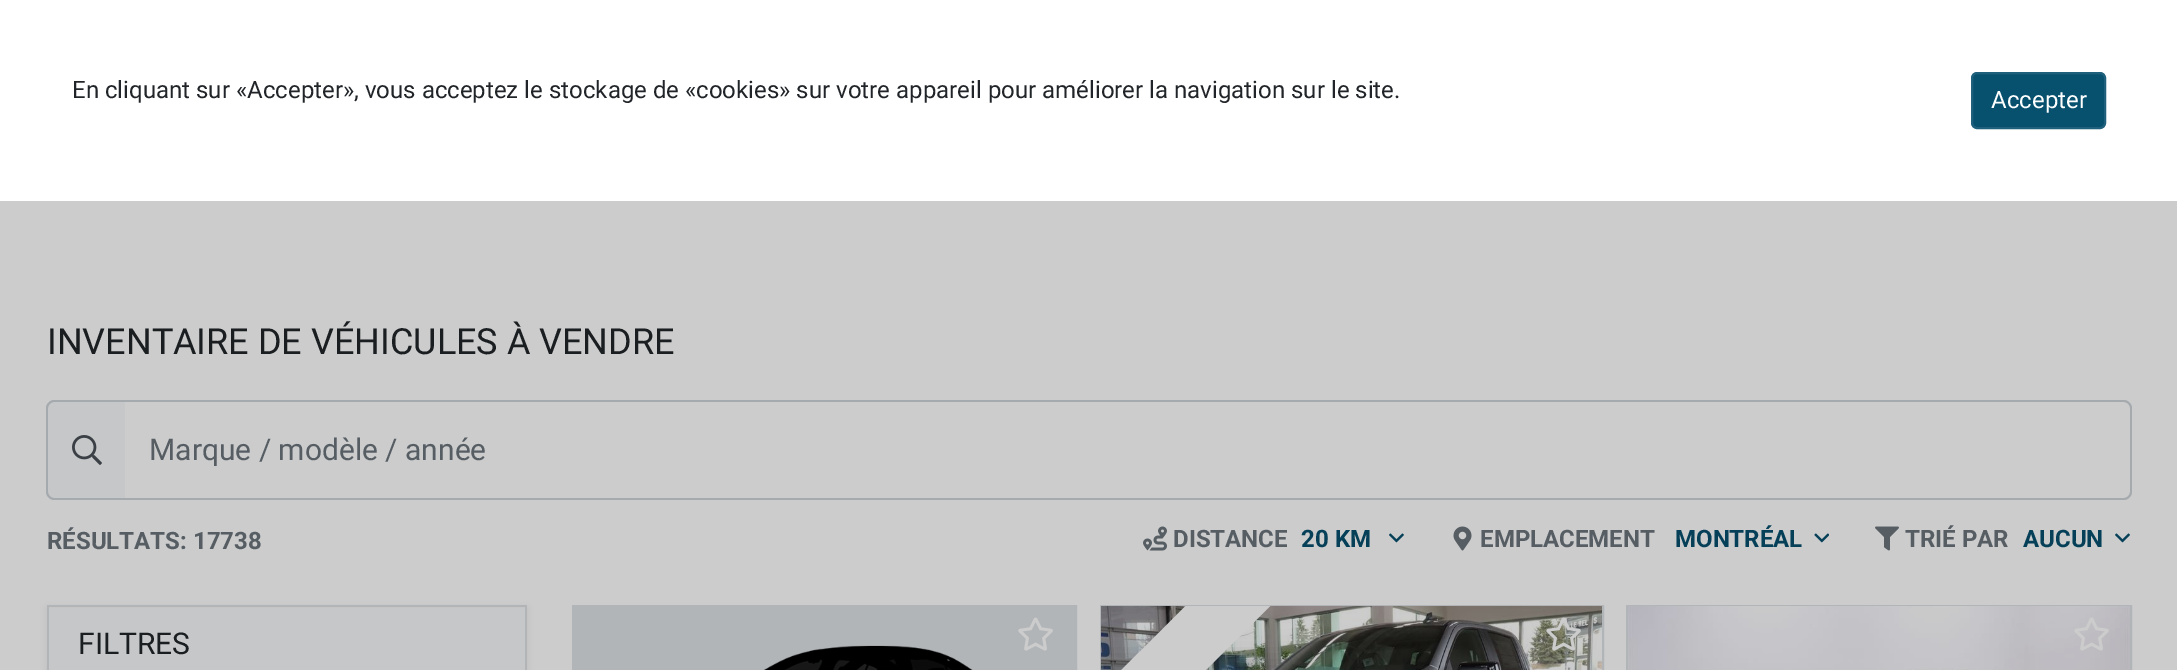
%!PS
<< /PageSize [2177 670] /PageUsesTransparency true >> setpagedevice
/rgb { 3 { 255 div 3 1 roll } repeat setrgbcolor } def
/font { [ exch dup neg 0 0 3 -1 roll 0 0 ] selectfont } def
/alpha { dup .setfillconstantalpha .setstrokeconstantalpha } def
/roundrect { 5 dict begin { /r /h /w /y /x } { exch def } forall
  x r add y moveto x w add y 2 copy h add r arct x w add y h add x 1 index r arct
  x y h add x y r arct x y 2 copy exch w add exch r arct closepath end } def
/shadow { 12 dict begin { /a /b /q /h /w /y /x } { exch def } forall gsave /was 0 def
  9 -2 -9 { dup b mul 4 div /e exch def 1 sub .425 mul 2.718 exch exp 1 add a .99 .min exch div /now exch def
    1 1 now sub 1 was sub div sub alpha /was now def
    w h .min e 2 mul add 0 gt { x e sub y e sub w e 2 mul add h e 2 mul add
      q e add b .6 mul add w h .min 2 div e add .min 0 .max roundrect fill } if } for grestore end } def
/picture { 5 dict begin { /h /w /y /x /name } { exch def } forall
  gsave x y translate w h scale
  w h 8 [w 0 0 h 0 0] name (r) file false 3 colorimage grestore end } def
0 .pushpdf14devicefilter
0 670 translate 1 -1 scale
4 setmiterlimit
204 204 204 rgb
0 0 2177 670 rectfill
255 255 255 rgb
0 0 2177 201 rectfill
7 80 110 rgb
1972 73 133 55 5 roundrect gsave fill grestore
31 97 124 rgb
2 setlinewidth
stroke
198 199 200 rgb
55 401 moveto 126 401 lineto 126 500 lineto 55 500 lineto 50.5 500 47 496.5 47 492 curveto 47 409 lineto 47 404.5 50.5 401 55 401 curveto closepath fill
165 170 174 rgb
54 400 moveto 126 400 lineto 126 500 lineto 54 500 lineto 50 500 46 496 46 492 curveto 46 408 lineto 46 404 50 400 54 400 curveto closepath 54 402 moveto 126 402 lineto 126 498 lineto 54 498 lineto 51 498 48 495 48 492 curveto 48 408 lineto 48 405 51 402 54 402 curveto closepath eofill
(img/1.rgb) 72 435 30 30 picture
204 204 204 rgb
125 402 moveto 2124 402 lineto 2127.5 402 2130 404.5 2130 408 curveto 2130 492 lineto 2130 495.5 2127.5 498 2124 498 curveto 125 498 lineto closepath fill
165 170 174 rgb
124 400 moveto 2124 400 lineto 2128 400 2132 404 2132 408 curveto 2132 492 lineto 2132 496 2128 500 2124 500 curveto 124 500 lineto closepath 124 402 moveto 2124 402 lineto 2127 402 2130 405 2130 408 curveto 2130 492 lineto 2130 495 2127 498 2124 498 curveto 124 498 lineto closepath eofill
(img/2.rgb) 1143 526 24 25 picture
(img/3.rgb) 1389 533 15 10 picture
(img/4.rgb) 1453 526 19 25 picture
(img/5.rgb) 1814 533 15 10 picture
(img/6.rgb) 1875 526 24 25 picture
(img/7.rgb) 2115 533 15 10 picture
0 0 0 rgb
47 608 480 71 0 3 0.07 shadow
[
  [49 608 476 62 198 199 200]
  [47 605 480 2 178 181 184]
  [525 605 2 65 178 181 184]
  [47 605 2 65 178 181 184]
] { aload pop rgb rectfill } forall
573 606 503 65 rectstroke
574 607 501 63 rectfill
1101 606 502 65 rectstroke
(img/10.rgb) 1101 606 501 64 picture
gsave
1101 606 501 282 rectclip
0 0 0 rgb
1026 656 270 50 0 12 0.15 shadow
grestore
(img/8.rgb) 1018 617 35 34 picture
(img/9.rgb) 764 645 209 25 picture
gsave
1101 606 501 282 rectclip
204 204 204 rgb
1044 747 moveto 1235 557 lineto 1277 599 lineto 1086 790 lineto closepath fill
grestore
(img/11.rgb) 1546 617 35 34 picture
1627 606 504 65 rectstroke
(img/12.rgb) 1628 606 502 64 picture
(img/13.rgb) 2074 617 35 34 picture
/Roboto-Regular 24 font
33 37 41 rgb
72 98 moveto (En cliquant sur «Accepter», vous acceptez le stockage de «cookies» sur votre appareil pour améliorer la navigation sur le site.) show
255 255 255 rgb
1991 108 moveto (Accepter) show
/Roboto-Regular 36 font
26 30 33 rgb
47 354 moveto (INVENTAIRE DE VÉHICULES À VENDRE) show
/Roboto-Regular 30 font
86 94 100 rgb
149 460 moveto (Marque / modèle / année) show
/Roboto-Bold 24 font
47 549 moveto (RÉSULTATS: 17738) show
1173 547 moveto (DISTANCE) show
6 64 88 rgb
1301 547 moveto (20 KM) show
86 94 100 rgb
1480 547 moveto (EMPLACEMENT) show
6 64 88 rgb
1675 547 moveto (MONTRÉAL) show
86 94 100 rgb
1905 547 moveto (TRIÉ PAR) show
6 64 88 rgb
2023 547 moveto (AUCUN) show
/Roboto-Regular 30 font
26 30 33 rgb
78 654 moveto (FILTRES) show
.poppdf14devicefilter showpage
